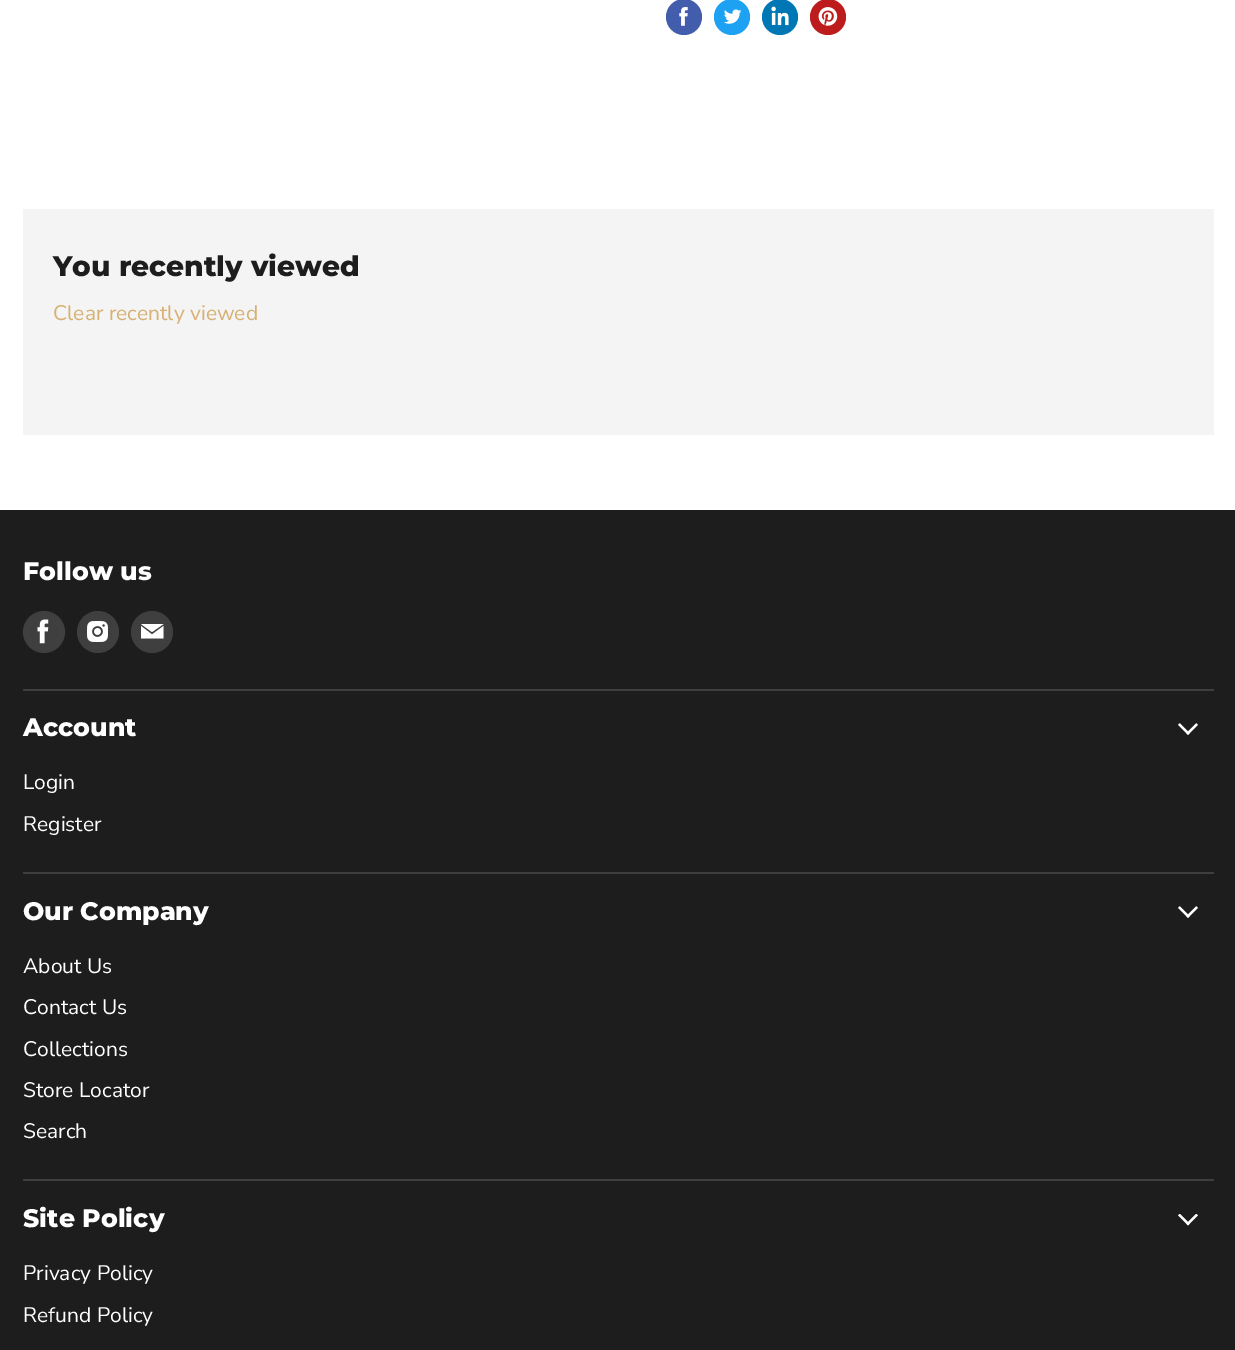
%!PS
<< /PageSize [1235 1350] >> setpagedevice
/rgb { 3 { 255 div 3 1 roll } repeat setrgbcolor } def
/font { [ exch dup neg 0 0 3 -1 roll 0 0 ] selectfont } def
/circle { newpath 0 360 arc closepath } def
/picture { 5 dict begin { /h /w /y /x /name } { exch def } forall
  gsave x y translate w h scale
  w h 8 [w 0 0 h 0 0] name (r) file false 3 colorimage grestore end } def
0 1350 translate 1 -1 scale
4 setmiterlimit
255 255 255 rgb
0 0 1235 1350 rectfill
66 93 171 rgb
684 17 18 circle fill
(img/1.rgb) 679 7 9 19 picture
29 161 242 rgb
732 17 18 circle fill
(img/2.rgb) 723 9 19 15 picture
0 119 181 rgb
780 17 18 circle fill
(img/3.rgb) 771 6 18 20 picture
189 28 28 rgb
828 17 18 circle fill
(img/4.rgb) 818 7 20 19 picture
[
  [23 209 1191 226 244 244 244]
  [0 510 1235 840 29 29 29]
  [23 689 1191 2 63 63 63]
] { aload pop rgb rectfill } forall
44 632 21 circle fill
(img/5.rgb) 37 619 12 25 picture
98 632 21 circle fill
(img/6.rgb) 87 621 21 21 picture
152 632 21 circle fill
255 255 255 rgb
163.5 624 moveto 141 624 lineto 152 632 lineto closepath 152 634.5 moveto 141 626 lineto 141 638.5 lineto 163.5 638.5 lineto 163.5 626 lineto closepath eofill
63 63 63 rgb
23 872 1191 2 rectfill
(img/7.rgb) 1178 723 20 12 picture
23 1179 1191 2 rectfill
(img/7.rgb) 1178 906 20 12 picture
(img/8.rgb) 1178 1214 20 12 picture
/Montserrat-ExtraBold 28.1 font
29 29 29 rgb
53 276 moveto (You recently viewed) show
/NunitoSans-Regular 21 font
215 177 115 rgb
53 320 moveto (Clear recently viewed) show
/Montserrat-ExtraBold 25.25 font
255 255 255 rgb
23 580 moveto (Follow us) show
23 736 moveto (Account) show
/NunitoSans-Regular 21 font
23 789 moveto (Login) show
23 831 moveto (Register) show
/Montserrat-ExtraBold 25.25 font
23 920 moveto (Our Company) show
/NunitoSans-Regular 21 font
[
  [(About Us) 23 973]
  [(Contact Us) 23 1014]
  [(Collections) 23 1056]
  [(Store Locator) 23 1097]
  [(Search) 23 1138]
] { aload pop moveto show } forall
/Montserrat-ExtraBold 25.25 font
23 1227 moveto (Site Policy) show
/NunitoSans-Regular 21 font
23 1280 moveto (Privacy Policy) show
23 1322 moveto (Refund Policy) show
showpage
